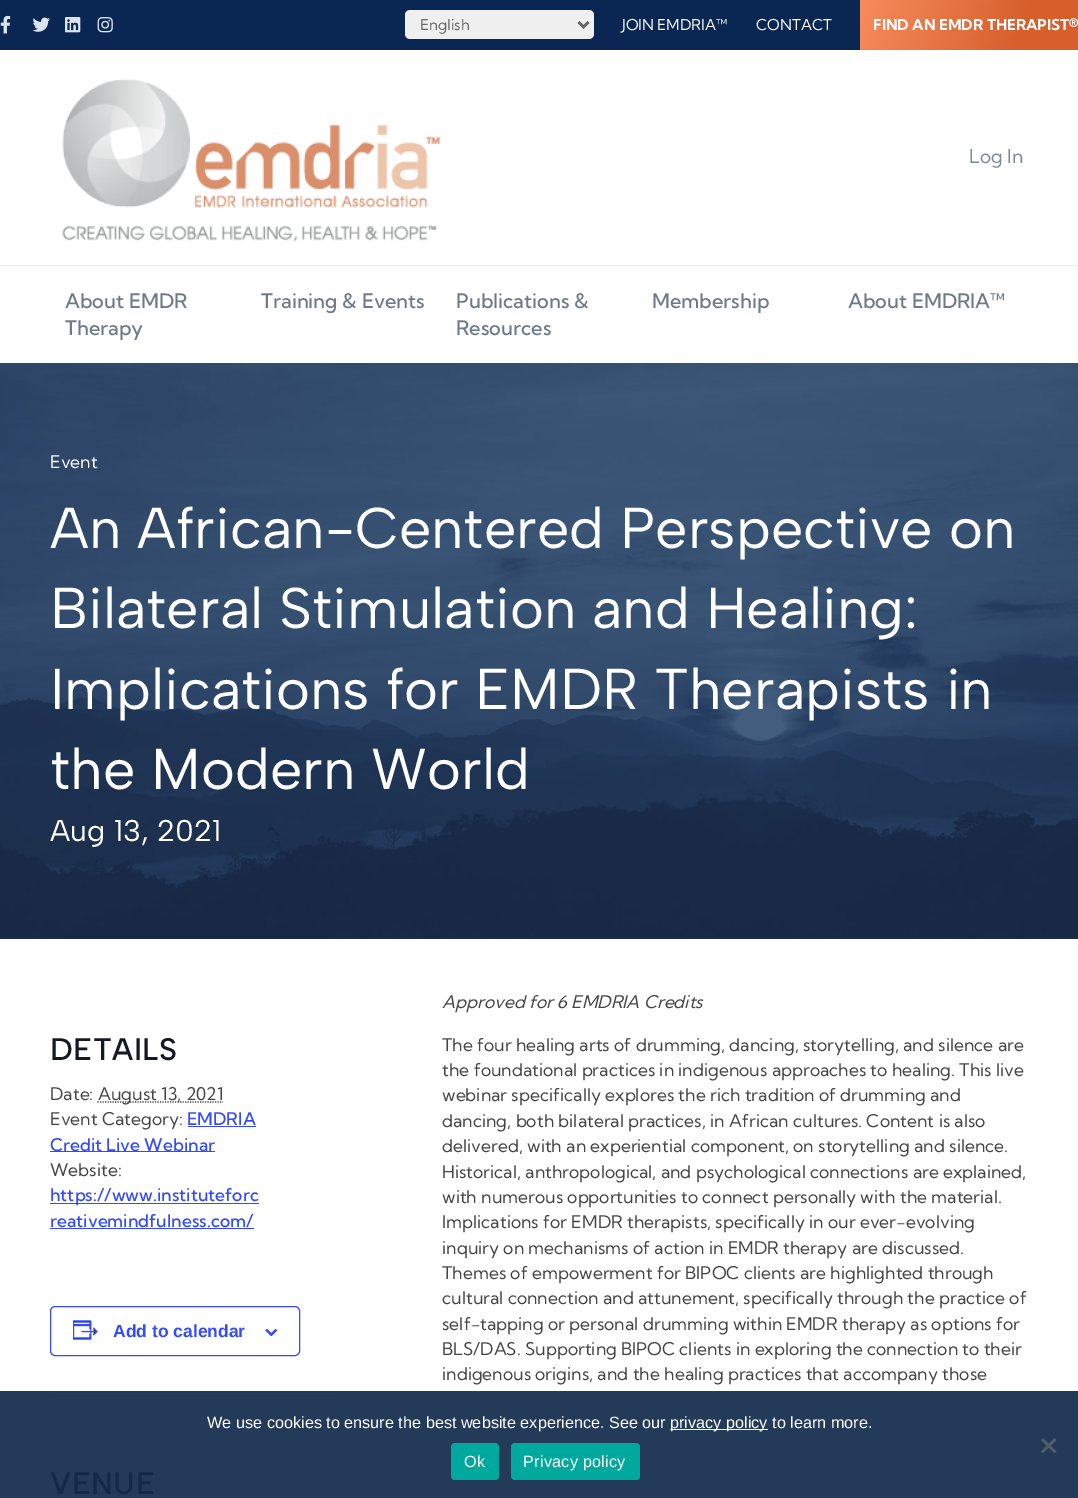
%!PS
<< /PageSize [1078 1498] >> setpagedevice
/rgb { 3 { 255 div 3 1 roll } repeat setrgbcolor } def
/font { [ exch dup neg 0 0 3 -1 roll 0 0 ] selectfont } def
/roundrect { 5 dict begin { /r /h /w /y /x } { exch def } forall
  x r add y moveto x w add y 2 copy h add r arct x w add y h add x 1 index r arct
  x y h add x y r arct x y 2 copy exch w add exch r arct closepath end } def
/picture { 5 dict begin { /h /w /y /x /name } { exch def } forall
  gsave x y translate w h scale
  w h 8 [w 0 0 h 0 0] name (r) file false 3 colorimage grestore end } def
0 1498 translate 1 -1 scale
4 setmiterlimit
10 39 84 rgb
0 0 1078 1498 rectfill
(img/1.rgb) 0 15 11 19 picture
(img/2.rgb) 32 17 18 15 picture
(img/3.rgb) 65 17 16 16 picture
(img/4.rgb) 97 17 16 16 picture
239 239 239 rgb
405 10 189 29 5 roundrect fill
102 102 102 rgb
2.5 setlinewidth
578.5 22 moveto 583.5 27 lineto 588.5 22 lineto stroke
gsave 860 0 moveto 1078 0 lineto 1078 50 lineto 860 50 lineto closepath clip newpath
<< /ShadingType 2 /ColorSpace /DeviceRGB /Coords [865 -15 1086 65] /Extend [true true] /Function << /FunctionType 3 /Domain [0 1] /Functions [<< /FunctionType 2 /Domain [0 1] /C0 [0.969 0.549 0.365] /C1 [0.839 0.373 0.173] /N 1 >> << /FunctionType 2 /Domain [0 1] /C0 [0.839 0.373 0.173] /C1 [0.839 0.373 0.173] /N 1 >>] /Bounds [0.7] /Encode [0 1 0 1] >> >> shfill grestore
255 255 255 rgb
0 50 1078 313 rectfill
(img/5.rgb) 62 79 379 163 picture
[
  [0 265 1078 1 238 238 238]
  [0 938 1078 453 255 255 255]
  [0 1391 1078 107 35 58 89]
] { aload pop rgb rectfill } forall
(img/6.rgb) 0 363 1078 576 picture
68 68 68 rgb
1.2 setlinewidth
[1.25 1.25] 0 setdash
97.5 1102 moveto 223 1102 lineto stroke
[
  [188 1126 68 1 51 74 255]
  [50 1151 165 1 51 74 255]
  [50 1203 209 1 51 74 255]
  [50 1228 204 1 51 74 255]
] { aload pop rgb rectfill } forall
1 setlinewidth
[] 0 setdash
50.5 1306.5 249 49 4.5 roundrect stroke
(img/7.rgb) 73 1320 25 20 picture
(img/8.rgb) 265 1329 13 7 picture
32 55 87 rgb
50 1396 293 1 rectfill
255 255 255 rgb
670 1429 98 1 rectfill
81 93 109 rgb
1054.5 1438 moveto 1056.5 1440 lineto 1043 1453 lineto 1041 1451.5 lineto closepath fill
1041 1440 moveto 1043 1438 lineto 1056.5 1451.5 lineto 1054.5 1453 lineto closepath fill
0 169 157 rgb
451 1443 48 37 4 roundrect fill
511 1443 129 37 4 roundrect fill
/KumbhSans-Regular 15 font
102 102 102 rgb
420 30 moveto (English) show
255 255 255 rgb
622 30 moveto (JOIN EMDRIA™) show
756 30 moveto (CONTACT) show
/KumbhSans-Bold 15 font
873 30 moveto (FIND AN EMDR THERAPIST®) show
/KumbhSans-Regular 19 font
124 137 155 rgb
969 163 moveto (Log In) show
/KumbhSans-Medium 20 font
110 122 137 rgb
[
  [(About EMDR) 65 308]
  [(Therapy) 65 335]
  [(Training & Events) 261 308]
  [(Publications &) 456 308]
  [(Resources) 456 335]
  [(Membership) 652 308]
  [(About EMDRIA™) 848 308]
] { aload pop moveto show } forall
/KumbhSans-Regular 17.5 font
255 255 255 rgb
50 468 moveto (Event) show
/AlbertSans-Regular 57.5 font
[
  [(An African-Centered Perspective on) 50 548]
  [(Bilateral Stimulation and Healing:) 50 628]
  [(Implications for EMDR Therapists in) 50 709]
  [(the Modern World) 50 789]
] { aload pop moveto show } forall
/AlbertSans-Regular 30 font
50 841 moveto (Aug 13, 2021) show
/AlbertSans-Bold 30 font
20 24 39 rgb
50 1060 moveto 1.25 0 (DETAILS) ashow
/KumbhSans-Regular 17.5 font
68 68 68 rgb
[
  [(Date:) 50 1100]
  [(August 13, 2021) 98 1100]
  [(Event Category:) 50 1125]
] { aload pop moveto show } forall
/KumbhSans-Medium 17.5 font
51 74 255 rgb
187 1125 moveto (EMDRIA) show
50 1151 moveto (Credit Live Webinar) show
/KumbhSans-Regular 17.5 font
68 68 68 rgb
50 1176 moveto (Website:) show
/KumbhSans-Medium 17.5 font
51 74 255 rgb
50 1201 moveto (https://www.instituteforc) show
50 1227 moveto (reativemindfulness.com/) show
/LiberationSans-Bold 17.5 font
113 1337 moveto (Add to calendar) show
/AlbertSans-Bold 30 font
18 42 74 rgb
50 1494 moveto 1.25 0 (VENUE) ashow
/KumbhSans-Italic 17.5 font
68 68 68 rgb
442 1008 moveto (Approved for 6 EMDRIA Credits) show
/KumbhSans-Regular 17.5 font
[
  [(The four healing arts of drumming, dancing, storytelling, and silence are) 442 1051]
  [(the foundational practices in indigenous approaches to healing. This live) 442 1076]
  [(webinar specifically explores the rich tradition of drumming and) 442 1101]
  [(dancing, both bilateral practices, in African cultures. Content is also) 442 1127]
  [(delivered, with an experiential component, on storytelling and silence.) 442 1152]
  [(Historical, anthropological, and psychological connections are explained,) 442 1178]
  [(with numerous opportunities to connect personally with the material.) 442 1203]
  [(Implications for EMDR therapists, specifically in our ever-evolving) 442 1228]
  [(inquiry on mechanisms of action in EMDR therapy are discussed.) 442 1254]
  [(Themes of empowerment for BIPOC clients are highlighted through) 442 1279]
  [(cultural connection and attunement, specifically through the practice of) 442 1304]
  [(self-tapping or personal drumming within EMDR therapy as options for) 442 1330]
  [(BLS/DAS. Supporting BIPOC clients in exploring the connection to their) 442 1355]
  [(indigenous origins, and the healing practices that accompany those) 442 1380]
] { aload pop moveto show } forall
/LiberationSans-Regular 16.25 font
255 255 255 rgb
207 1428 moveto (We use cookies to ensure the best website experience. See our) show
670 1428 moveto (privacy policy to learn more.) show
464 1467 moveto 0.25 0 (Ok) ashow
523 1467 moveto 0.25 0 (Privacy policy) ashow
showpage
